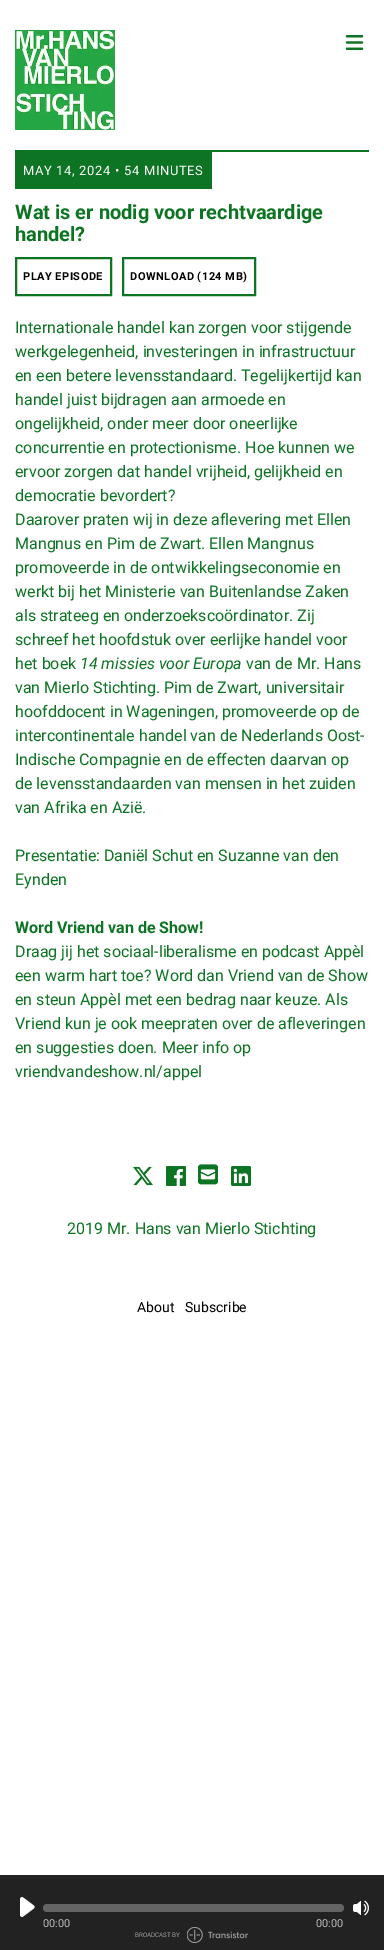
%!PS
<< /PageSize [384 1950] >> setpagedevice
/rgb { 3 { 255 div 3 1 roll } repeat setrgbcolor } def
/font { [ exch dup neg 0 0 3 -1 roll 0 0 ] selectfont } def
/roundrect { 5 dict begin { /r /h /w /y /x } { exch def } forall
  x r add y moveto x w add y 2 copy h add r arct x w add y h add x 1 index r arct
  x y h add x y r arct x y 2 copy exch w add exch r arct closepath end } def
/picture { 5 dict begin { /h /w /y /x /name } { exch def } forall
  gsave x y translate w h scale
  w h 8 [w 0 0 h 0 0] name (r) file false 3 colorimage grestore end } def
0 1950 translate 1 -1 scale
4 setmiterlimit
255 255 255 rgb
0 0 384 1950 rectfill
(img/1.rgb) 345 35 19 15 picture
(img/2.rgb) 15 30 100 100 picture
12 116 34 rgb
15 150 354 2 rectfill
15 152 197 37 rectfill
2 setlinewidth
16 258 95 37 rectstroke
123 258 132 37 rectstroke
(img/3.rgb) 133 1166 20 20 picture
(img/4.rgb) 166 1166 20 20 picture
(img/5.rgb) 198 1164 20 21 picture
(img/6.rgb) 231 1166 20 20 picture
34 34 34 rgb
0 1875 384 75 rectfill
(img/7.rgb) 20 1897 15 20 picture
(img/8.rgb) 353 1900 16 16 picture
100 100 100 rgb
43 1904 301 8 4 roundrect fill
(img/9.rgb) 187 1927 61 16 picture
/Roboto-Regular 13 font
255 255 255 rgb
23 175 moveto 0.65 0 (MAY 14, 2024 • 54 MINUTES) ashow
/Roboto-Bold 20 font
12 116 34 rgb
15 219 moveto (Wat is er nodig voor rechtvaardige) show
15 241 moveto (handel?) show
/Roboto-Bold 11 font
0 0 0 rgb
23 280 moveto 0.5 0 (PLAY EPISODE) ashow
130 280 moveto 0.5 0 (DOWNLOAD \(124 MB\)) ashow
/Roboto-Regular 16 font
12 116 34 rgb
[
  [(Internationale handel kan zorgen voor stijgende) 15 333]
  [(werkgelegenheid, investeringen in infrastructuur) 15 357]
  [(en een betere levensstandaard. Tegelijkertijd kan) 15 381]
  [(handel juist bijdragen aan armoede en) 15 405]
  [(ongelijkheid, onder meer door oneerlijke) 15 429]
  [(concurrentie en protectionisme. Hoe kunnen we) 15 453]
  [(ervoor zorgen dat handel vrijheid, gelijkheid en) 15 477]
  [(democratie bevordert?) 15 501]
  [(Daarover praten wij in deze aflevering met Ellen) 15 525]
  [(Mangnus en Pim de Zwart. Ellen Mangnus) 15 549]
  [(promoveerde in de ontwikkelingseconomie en) 15 573]
  [(werkt bij het Ministerie van Buitenlandse Zaken) 15 597]
  [(als strateeg en onderzoekscoördinator. Zij) 15 621]
  [(schreef het hoofdstuk over eerlijke handel voor) 15 645]
  [(het boek) 15 669]
] { aload pop moveto show } forall
/Roboto-Italic 16 font
80 669 moveto (14 missies voor Europa) show
/Roboto-Regular 16 font
[
  [(van de Mr. Hans) 246 669]
  [(van Mierlo Stichting. Pim de Zwart, universitair) 15 693]
  [(hoofddocent in Wageningen, promoveerde op de) 15 717]
  [(intercontinentale handel van de Nederlands Oost-) 15 741]
  [(Indische Compagnie en de effecten daarvan op) 15 765]
  [(de levensstandaarden van mensen in het zuiden) 15 789]
  [(van Afrika en Azië.) 15 813]
  [(Presentatie: Daniël Schut en Suzanne van den) 15 861]
  [(Eynden) 15 885]
] { aload pop moveto show } forall
/Roboto-Bold 16 font
15 933 moveto (Word Vriend van de Show!) show
/Roboto-Regular 16 font
[
  [(Draag jij het sociaal-liberalisme en podcast Appèl) 15 957]
  [(een warm hart toe? Word dan Vriend van de Show) 15 981]
  [(en steun Appèl met een bedrag naar keuze. Als) 15 1005]
  [(Vriend kun je ook meepraten over de afleveringen) 15 1029]
  [(en suggesties doen. Meer info op) 15 1053]
  [(vriendvandeshow.nl/appel) 15 1077]
  [(2019 Mr. Hans van Mierlo Stichting) 67 1234]
] { aload pop moveto show } forall
/Roboto-Regular 14 font
0 0 0 rgb
137 1312 moveto (About) show
185 1312 moveto (Subscribe) show
/Roboto-Regular 11 font
189 189 189 rgb
43 1927 moveto (00:00) show
316 1927 moveto (00:00) show
/Roboto-Regular 6.25 font
156 156 156 rgb
135 1937 moveto (BROADCAST BY) show
showpage
